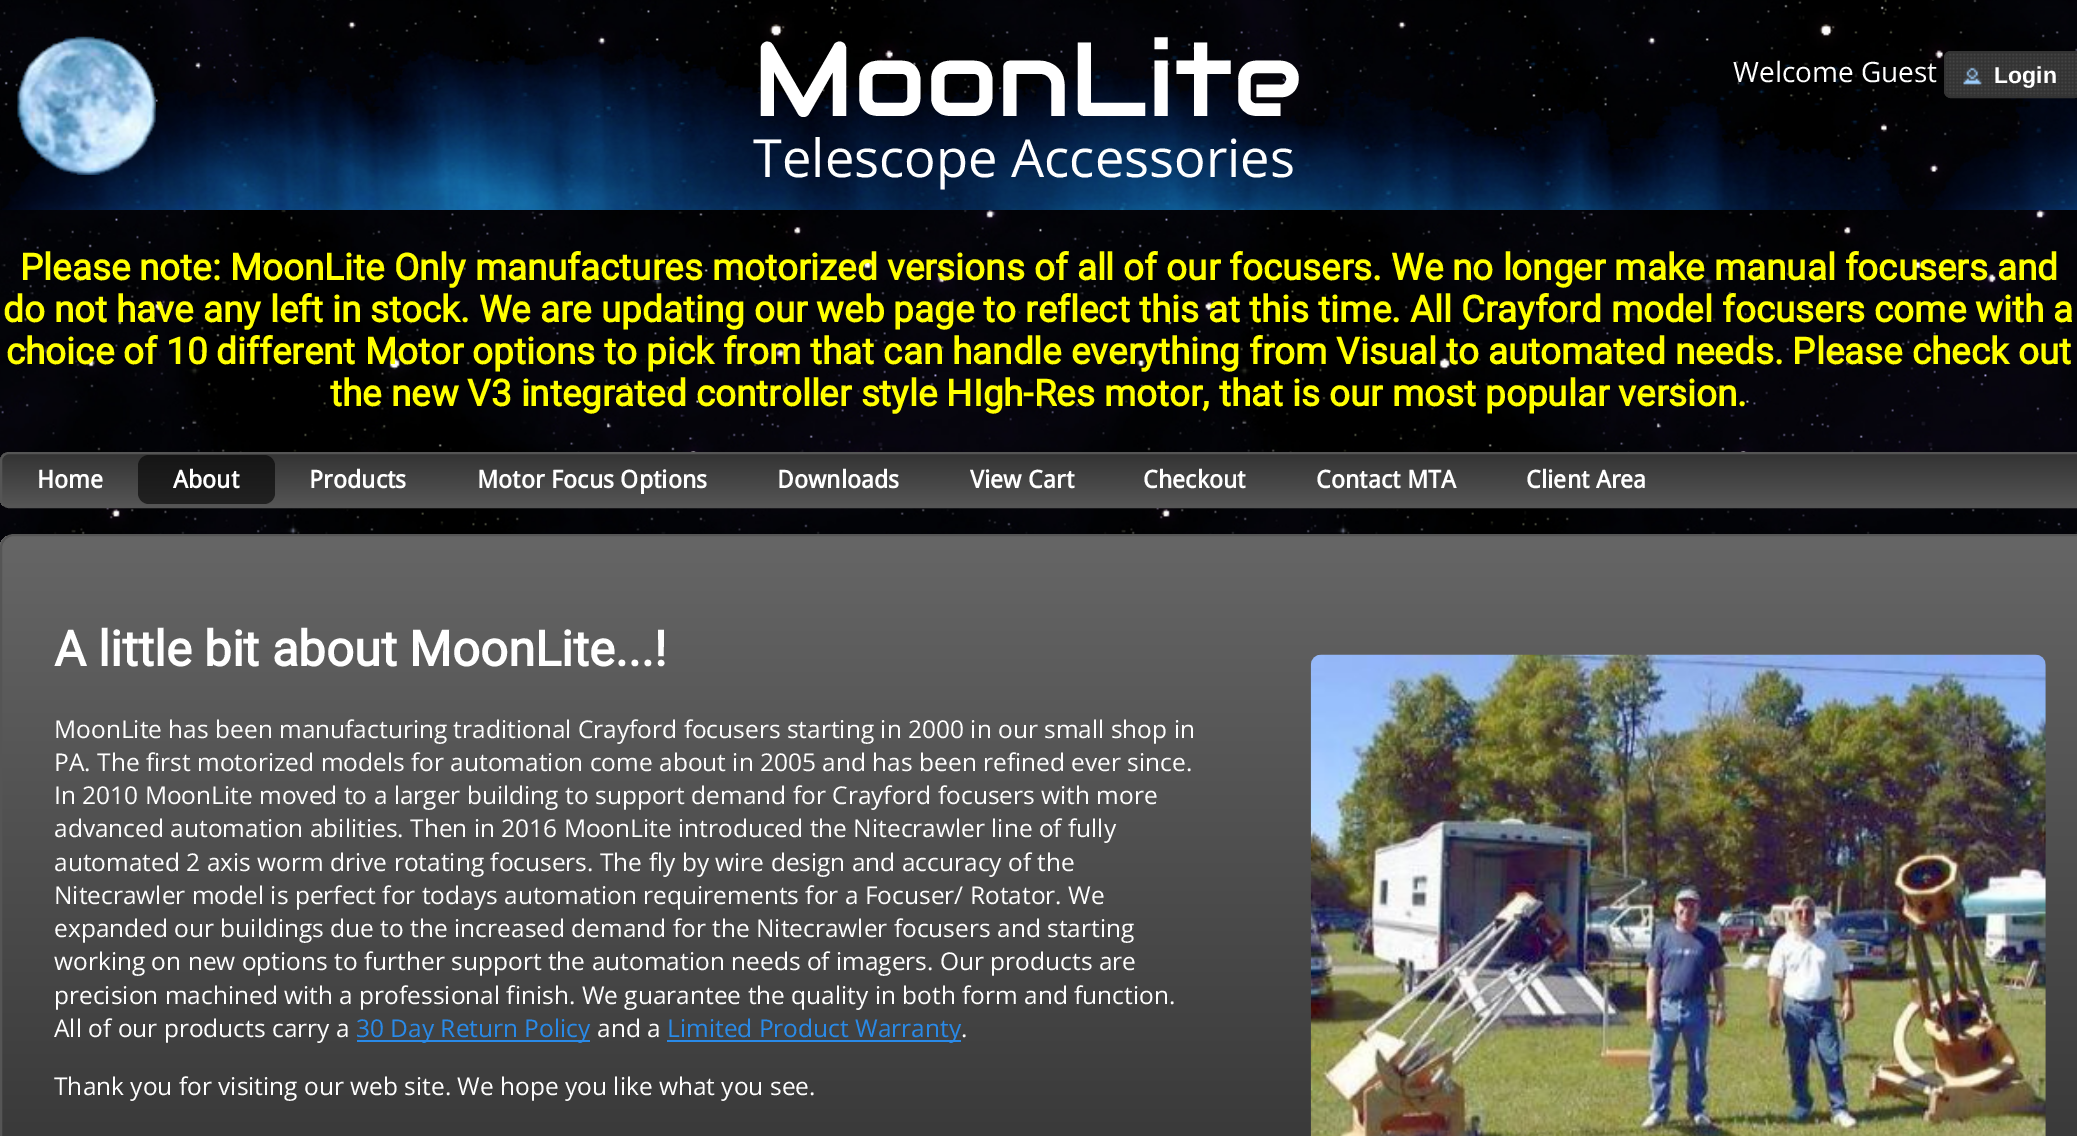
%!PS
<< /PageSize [2077 1136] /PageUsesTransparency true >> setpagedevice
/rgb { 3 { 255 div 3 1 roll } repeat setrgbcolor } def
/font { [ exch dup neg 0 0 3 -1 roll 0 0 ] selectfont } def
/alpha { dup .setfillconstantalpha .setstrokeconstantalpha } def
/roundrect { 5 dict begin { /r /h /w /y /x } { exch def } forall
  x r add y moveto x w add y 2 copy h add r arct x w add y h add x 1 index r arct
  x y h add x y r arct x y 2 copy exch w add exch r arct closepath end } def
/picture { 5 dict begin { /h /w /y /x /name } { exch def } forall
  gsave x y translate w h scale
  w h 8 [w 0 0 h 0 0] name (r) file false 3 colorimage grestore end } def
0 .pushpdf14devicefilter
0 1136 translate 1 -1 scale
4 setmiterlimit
255 255 255 rgb
0 0 2077 1136 rectfill
(img/1.rgb) 0 0 2077 548 picture
(img/2.rgb) 2 45 2075 165 picture
(img/3.rgb) 17 36 139 139 picture
(img/4.rgb) 1944 51 133 47 picture
51 51 51 rgb
2 setlinewidth
1945 52 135 45 6 roundrect stroke
(img/5.rgb) 1963 67 19 18 picture
gsave
0 452 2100 56 9 roundrect clip newpath
gsave 0 453 moveto 2077 453 lineto 2077 506 lineto 0 506 lineto closepath clip newpath
<< /ShadingType 2 /ColorSpace /DeviceRGB /Coords [1050 453 1050 506] /Extend [true true] /Function << /FunctionType 2 /Domain [0 1] /C0 [0.2 0.2 0.2] /C1 [0.333 0.333 0.333] /N 1 >> >> shfill grestore
grestore
85 85 85 rgb
1 453 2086 54 8 roundrect stroke
0.6 alpha
0 0 0 rgb
138 455 137 49 11 roundrect fill
gsave
0 534 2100 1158 14 roundrect clip newpath
1 alpha
gsave 0 536 moveto 2077 536 lineto 2077 1136 lineto 0 1136 lineto closepath clip newpath
<< /ShadingType 2 /ColorSpace /DeviceRGB /Coords [1050 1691 1050 536] /Extend [true true] /Function << /FunctionType 2 /Domain [0 1] /C0 [0.067 0.067 0.067] /C1 [0.4 0.4 0.4] /N 1 >> >> shfill grestore
grestore
1 alpha
85 85 85 rgb
1 535 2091 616 13 roundrect stroke
41 138 232 rgb
357 1040 233 2 rectfill
667 1040 294 2 rectfill
(img/6.rgb) 1310 654 736 482 picture
/Audiowide-Regular 105 font
255 255 255 rgb
753 116 moveto (MoonLite) show
/OpenSans-Regular 52.5 font
753 177 moveto (Telescope Accessories) show
/OpenSans-Regular 28 font
1733 82 moveto (Welcome Guest) show
/LiberationSans-Bold 23 font
1994 83 moveto (Login) show
/Roboto-Bold 36.75 font
255 255 0 rgb
[
  [(Please note: MoonLite Only manufactures motorized versions of all of our focusers. We no longer make manual focusers and) 20 280]
  [(do not have any left in stock. We are updating our web page to reflect this at this time. All Crayford model focusers come with a) 3 322]
  [(choice of 10 different Motor options to pick from that can handle everything from Visual to automated needs. Please check out) 6 364]
  [(the new V3 integrated controller style HIgh-Res motor, that is our most popular version.) 330 406]
] { aload pop moveto show } forall
/DroidSans-Bold 24.5 font
255 255 255 rgb
[
  [(Home) 37 488]
  [(About) 173 488]
  [(Products) 309 488]
  [(Motor Focus Options) 477 488]
  [(Downloads) 777 488]
  [(View Cart) 970 488]
  [(Checkout) 1143 488]
  [(Contact MTA) 1316 488]
  [(Client Area) 1526 488]
] { aload pop moveto show } forall
/Roboto-Bold 49 font
54 666 moveto (A little bit about MoonLite...!) show
/OpenSans-Regular 24.5 font
[
  [(MoonLite has been manufacturing traditional Crayford focusers starting in 2000 in our small shop in) 54 738]
  [(PA. The first motorized models for automation come about in 2005 and has been refined ever since.) 54 771]
  [(In 2010 MoonLite moved to a larger building to support demand for Crayford focusers with more) 54 804]
  [(advanced automation abilities. Then in 2016 MoonLite introduced the Nitecrawler line of fully) 54 837]
  [(automated 2 axis worm drive rotating focusers. The fly by wire design and accuracy of the) 54 871]
  [(Nitecrawler model is perfect for todays automation requirements for a Focuser/ Rotator. We) 54 904]
  [(expanded our buildings due to the increased demand for the Nitecrawler focusers and starting) 54 937]
  [(working on new options to further support the automation needs of imagers. Our products are) 54 970]
  [(precision machined with a professional finish. We guarantee the quality in both form and function.) 54 1004]
  [(All of our products carry a) 54 1037]
] { aload pop moveto show } forall
41 138 232 rgb
356 1037 moveto (30 Day Return Policy) show
255 255 255 rgb
597 1037 moveto (and a) show
41 138 232 rgb
667 1037 moveto (Limited Product Warranty) show
255 255 255 rgb
961 1037 moveto (.) show
54 1095 moveto (Thank you for visiting our web site. We hope you like what you see.) show
.poppdf14devicefilter showpage
